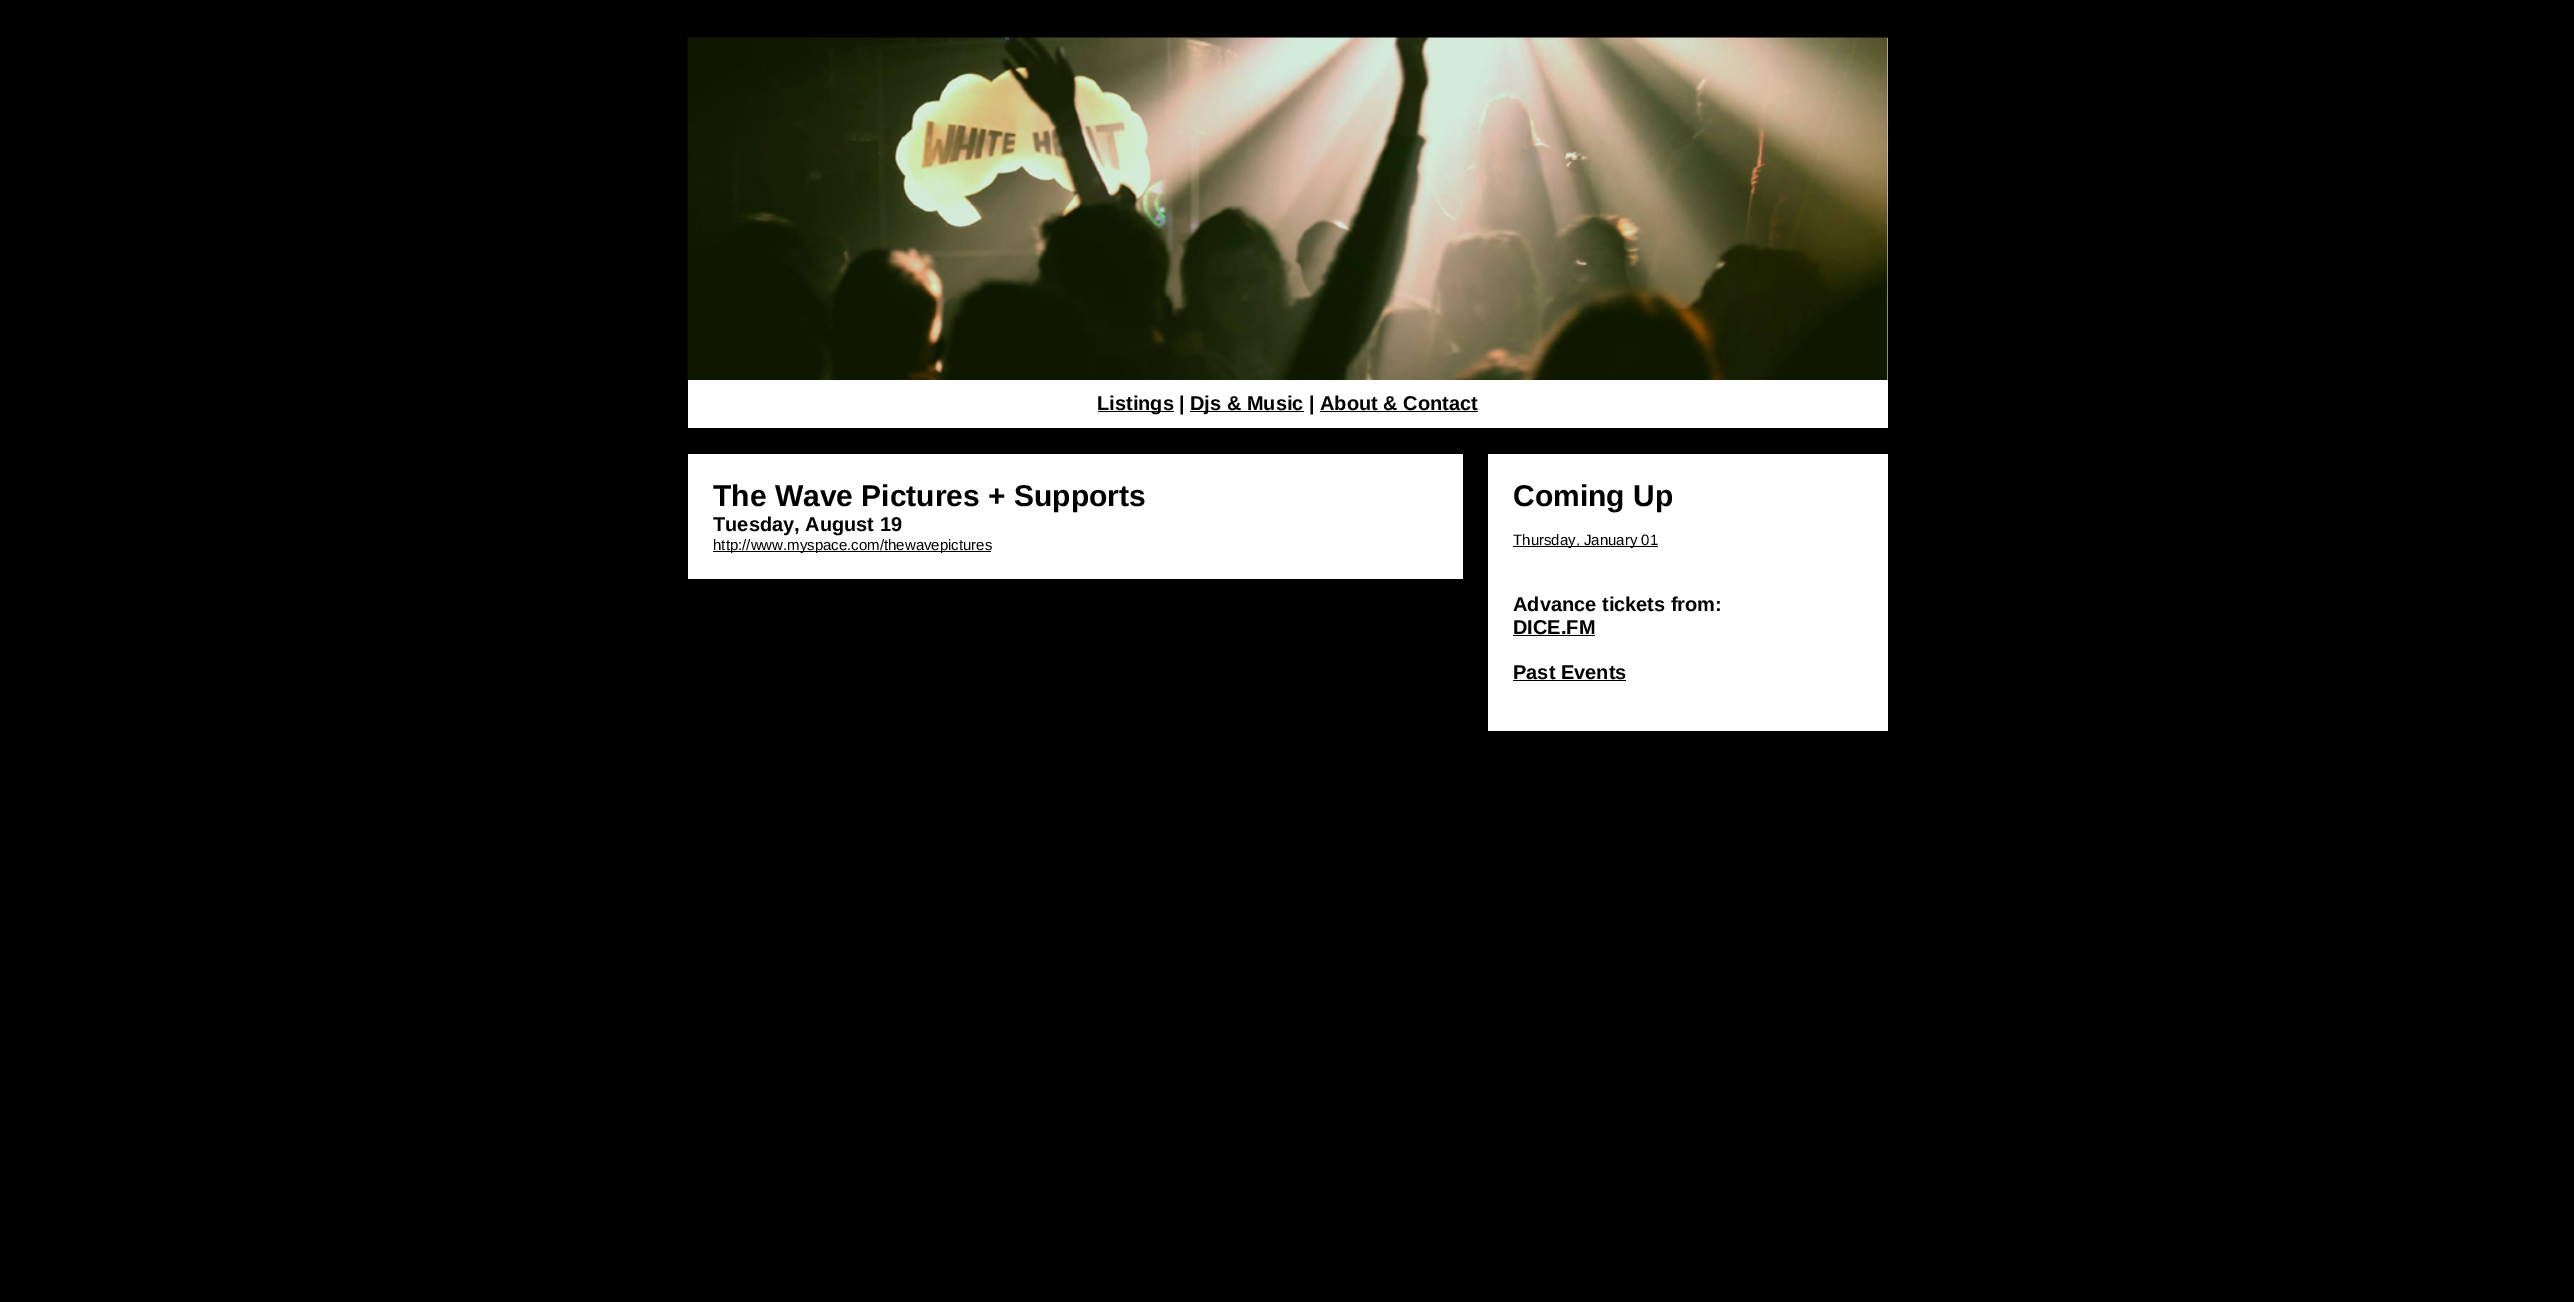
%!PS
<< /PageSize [2574 1302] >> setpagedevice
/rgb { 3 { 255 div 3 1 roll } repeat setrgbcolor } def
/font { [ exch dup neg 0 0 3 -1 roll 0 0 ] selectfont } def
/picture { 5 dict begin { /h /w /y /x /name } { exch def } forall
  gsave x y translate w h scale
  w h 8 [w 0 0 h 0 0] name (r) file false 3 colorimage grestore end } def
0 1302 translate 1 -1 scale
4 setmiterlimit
0 0 0 rgb
0 0 2574 1302 rectfill
255 255 255 rgb
688 38 1200 390 rectfill
(img/1.rgb) 687 37 1201 343 picture
[
  [1098 411 76 1 0 0 0]
  [1190 411 114 1 0 0 0]
  [1320 411 158 1 0 0 0]
  [688 454 775 125 255 255 255]
  [713 551 278 1 0 0 0]
  [1488 454 400 277 255 255 255]
  [1513 546 145 1 0 0 0]
  [1513 635 82 1 0 0 0]
  [1513 680 113 1 0 0 0]
] { aload pop rgb rectfill } forall
/LiberationSans-Bold 20 font
1097 410 moveto (Listings |) show
1190 410 moveto (Djs & Music | About & Contact) show
/LiberationSans-Bold 30 font
713 506 moveto (The Wave Pictures + Supports) show
/LiberationSans-Bold 20 font
713 531 moveto (Tuesday, August 19) show
/LiberationSans-Regular 15 font
713 550 moveto (http://www.myspace.com/thewavepictures) show
/LiberationSans-Bold 30 font
1513 506 moveto (Coming Up) show
/LiberationSans-Regular 15 font
1513 545 moveto (Thursday, January 01) show
/LiberationSans-Bold 20 font
[
  [(Advance tickets from:) 1513 611]
  [(DICE.FM) 1513 634]
  [(Past Events) 1513 679]
] { aload pop moveto show } forall
showpage
